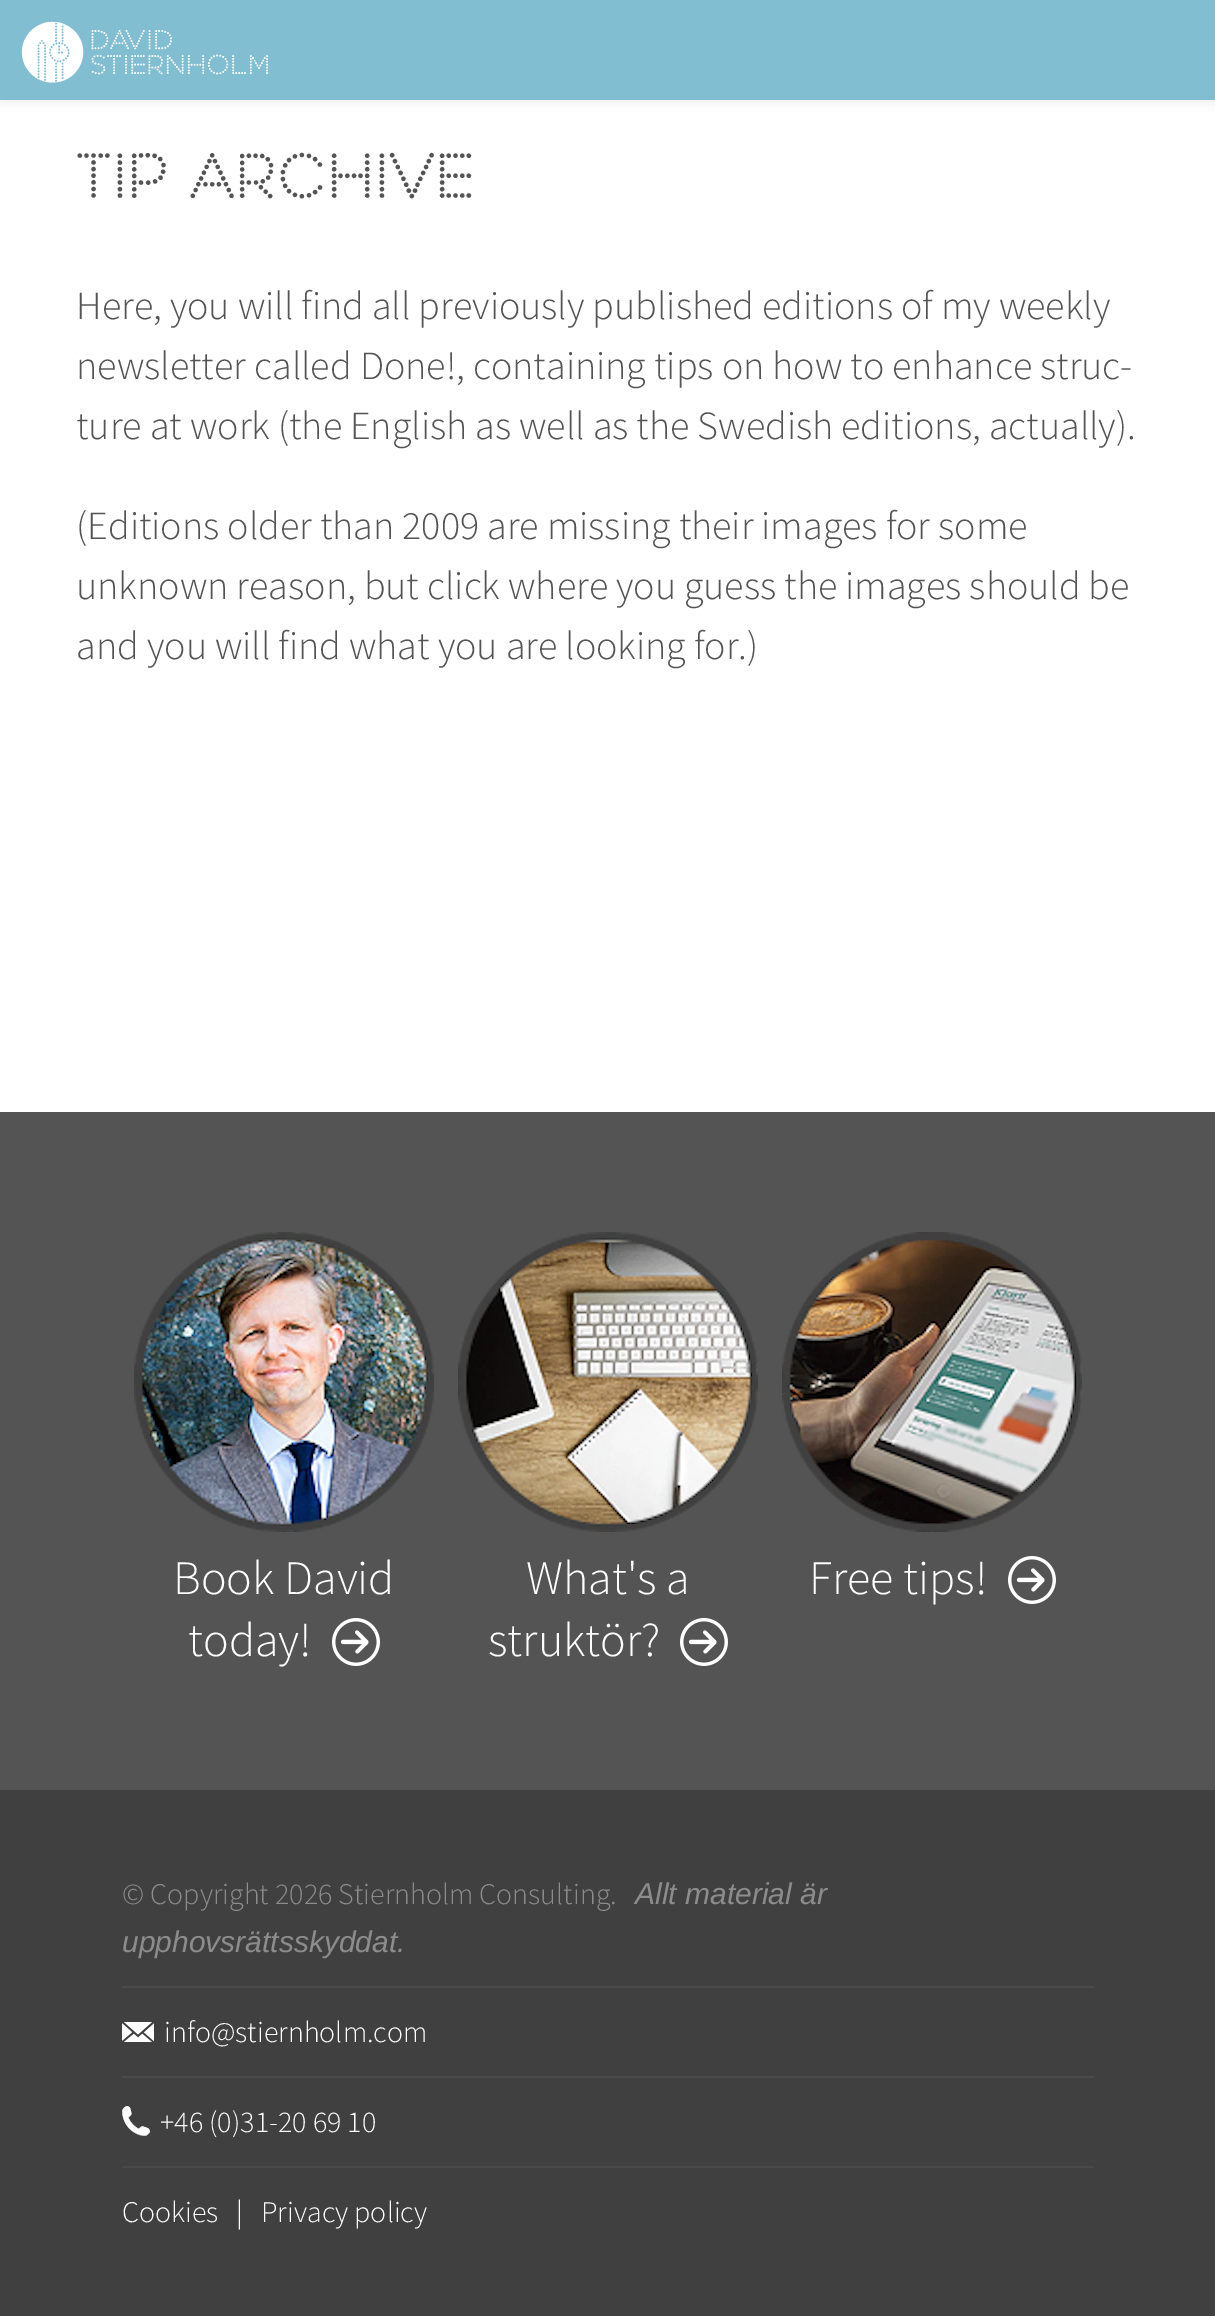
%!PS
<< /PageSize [1215 2316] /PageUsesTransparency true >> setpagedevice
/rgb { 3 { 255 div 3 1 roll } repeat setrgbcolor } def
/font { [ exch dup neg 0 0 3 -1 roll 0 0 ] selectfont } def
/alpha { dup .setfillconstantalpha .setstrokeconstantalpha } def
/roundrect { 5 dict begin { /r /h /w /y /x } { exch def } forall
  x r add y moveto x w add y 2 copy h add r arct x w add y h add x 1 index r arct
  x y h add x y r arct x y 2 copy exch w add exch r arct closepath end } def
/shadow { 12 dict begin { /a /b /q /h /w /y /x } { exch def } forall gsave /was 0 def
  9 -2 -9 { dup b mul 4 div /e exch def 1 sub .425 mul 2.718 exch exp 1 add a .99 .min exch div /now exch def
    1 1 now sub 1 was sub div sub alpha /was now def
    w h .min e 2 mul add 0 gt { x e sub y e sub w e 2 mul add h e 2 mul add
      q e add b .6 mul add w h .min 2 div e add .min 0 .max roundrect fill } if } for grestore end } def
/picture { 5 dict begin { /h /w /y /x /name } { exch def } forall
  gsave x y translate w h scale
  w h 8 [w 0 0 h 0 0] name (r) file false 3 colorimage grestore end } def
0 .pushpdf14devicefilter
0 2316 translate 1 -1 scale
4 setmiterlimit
255 255 255 rgb
0 0 1215 2316 rectfill
0 0 0 rgb
0 4 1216 100 0 5 0.05 shadow
130 190 210 rgb
0 0 1215 100 rectfill
(img/1.rgb) 21 21 247 62 picture
84 84 84 rgb
0 1112 1215 678 rectfill
(img/2.rgb) 134 1232 300 300 picture
(img/3.rgb) 332 1618 48 48 picture
(img/4.rgb) 458 1232 300 300 picture
(img/3.rgb) 680 1618 48 48 picture
(img/5.rgb) 782 1232 300 300 picture
(img/3.rgb) 1008 1556 48 48 picture
64 64 64 rgb
0 1790 1215 526 rectfill
73 73 73 rgb
122 1986 972 2 rectfill
(img/6.rgb) 122 2022 32 20 picture
122 2076 972 2 rectfill
(img/7.rgb) 122 2106 28 30 picture
122 2166 972 2 rectfill
/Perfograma-Regular 60 font
84 84 84 rgb
76 198 moveto (Tip archive) show
/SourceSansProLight-Light 40 font
[
  [(Here, you will find all previously published editions of my weekly) 76 319]
  [(newsletter called Done!, containing tips on how to enhance struc-) 76 379]
  [(ture at work \(the English as well as the Swedish editions, actually\).) 76 439]
  [(\(Editions older than 2009 are missing their images for some) 76 539]
  [(unknown reason, but click where you guess the images should be) 76 599]
  [(and you will find what you are looking for.\)) 76 659]
] { aload pop moveto show } forall
/SourceSansProLight-Light 48 font
255 255 255 rgb
[
  [(Book David) 173 1594]
  [(today!) 188 1656]
  [(What's a) 526 1594]
  [(struktör?) 488 1656]
  [(Free tips!) 809 1594]
] { aload pop moveto show } forall
/SourceSansProLight-Light 30 font
140 140 140 rgb
122 1904 moveto (© Copyright 2026 Stiernholm Consulting.) show
/LiberationSans-Italic 30 font
635 1904 moveto (Allt material är) show
122 1952 moveto (upphovsrättsskyddat.) show
/SourceSansProLight-Light 30 font
255 255 255 rgb
[
  [(info@stiernholm.com) 164 2042]
  [(+46 \(0\)31-20 69 10) 160 2132]
  [(Cookies) 122 2222]
  [(|) 236 2222]
  [(Privacy policy) 261 2222]
] { aload pop moveto show } forall
.poppdf14devicefilter showpage
